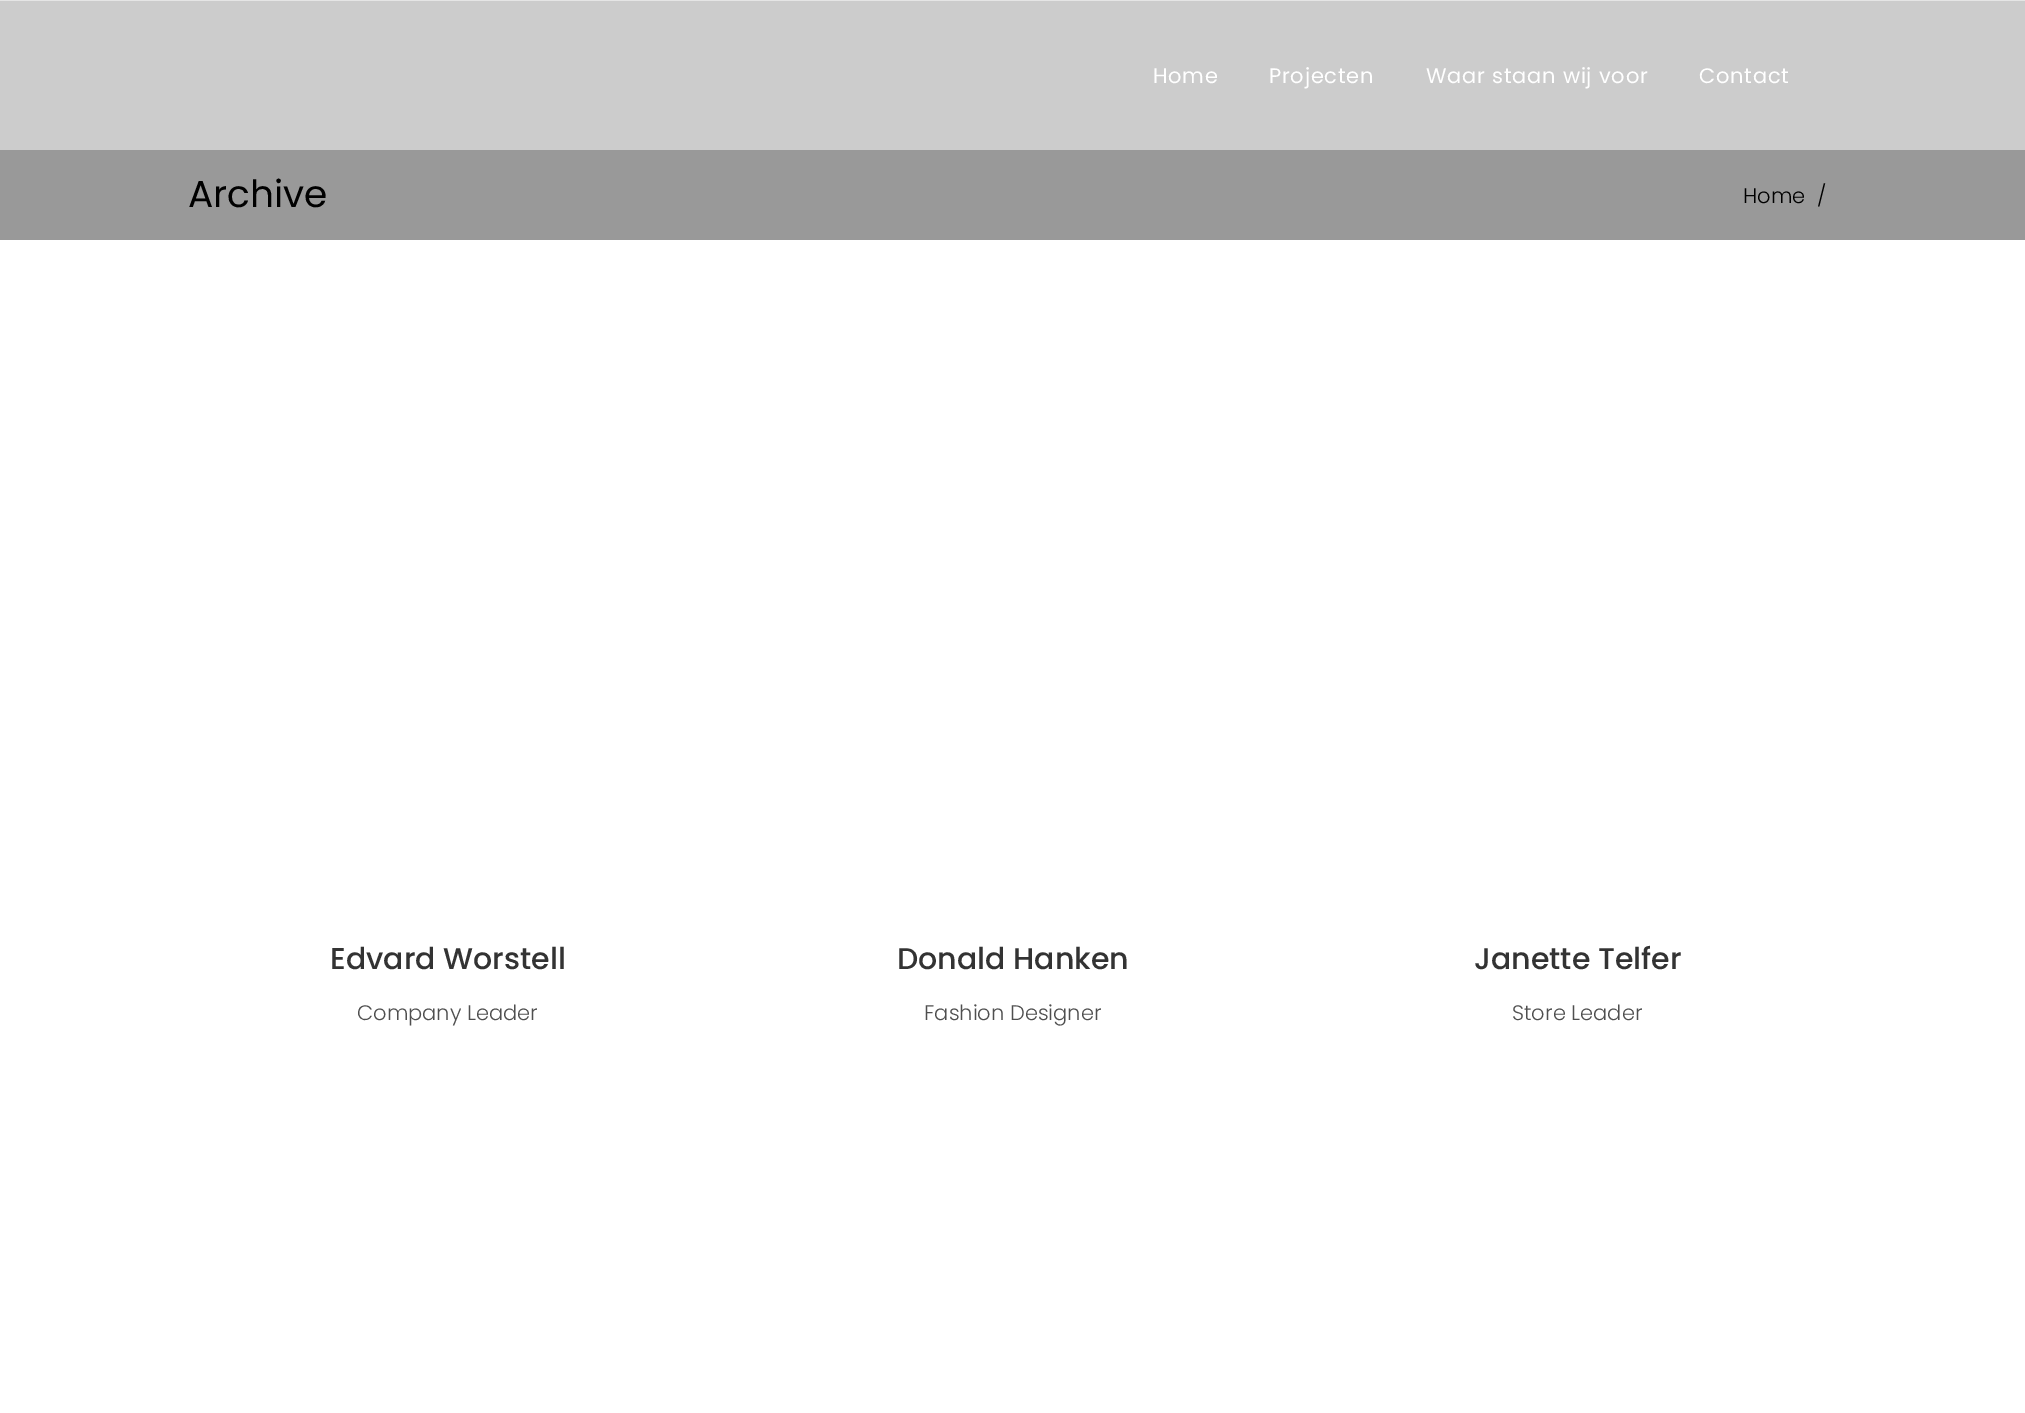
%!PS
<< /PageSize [2025 1413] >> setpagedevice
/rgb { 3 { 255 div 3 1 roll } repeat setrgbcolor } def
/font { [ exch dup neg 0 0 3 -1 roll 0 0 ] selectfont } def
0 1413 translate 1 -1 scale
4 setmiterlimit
255 255 255 rgb
0 0 2025 1413 rectfill
[
  [0 1 2025 149 204 204 204]
  [0 0 2025 1 229 229 229]
  [0 150 2025 90 153 153 153]
] { aload pop rgb rectfill } forall
/Poppins-Regular 21 font
255 255 255 rgb
1153 83 moveto 0.75 0 (Home) ashow
1269 83 moveto 0.75 0 (Projecten) ashow
1426 83 moveto 0.75 0 (Waar staan wij voor) ashow
1699 83 moveto 0.75 0 (Contact) ashow
/Poppins-Regular 37.5 font
0 0 0 rgb
188 207 moveto (Archive) show
/Poppins-Light 21 font
1743 203 moveto (Home) show
1817 203 moveto (/) show
/Poppins-Medium 30 font
51 51 51 rgb
330 969 moveto (Edvard Worstell) show
/Poppins-Light 21 font
79 79 79 rgb
357 1020 moveto (Company Leader) show
/Poppins-Medium 30 font
51 51 51 rgb
897 969 moveto (Donald Hanken) show
/Poppins-Light 21 font
79 79 79 rgb
924 1020 moveto (Fashion Designer) show
/Poppins-Medium 30 font
51 51 51 rgb
1474 969 moveto (Janette Telfer) show
/Poppins-Light 21 font
79 79 79 rgb
1512 1020 moveto (Store Leader) show
showpage
